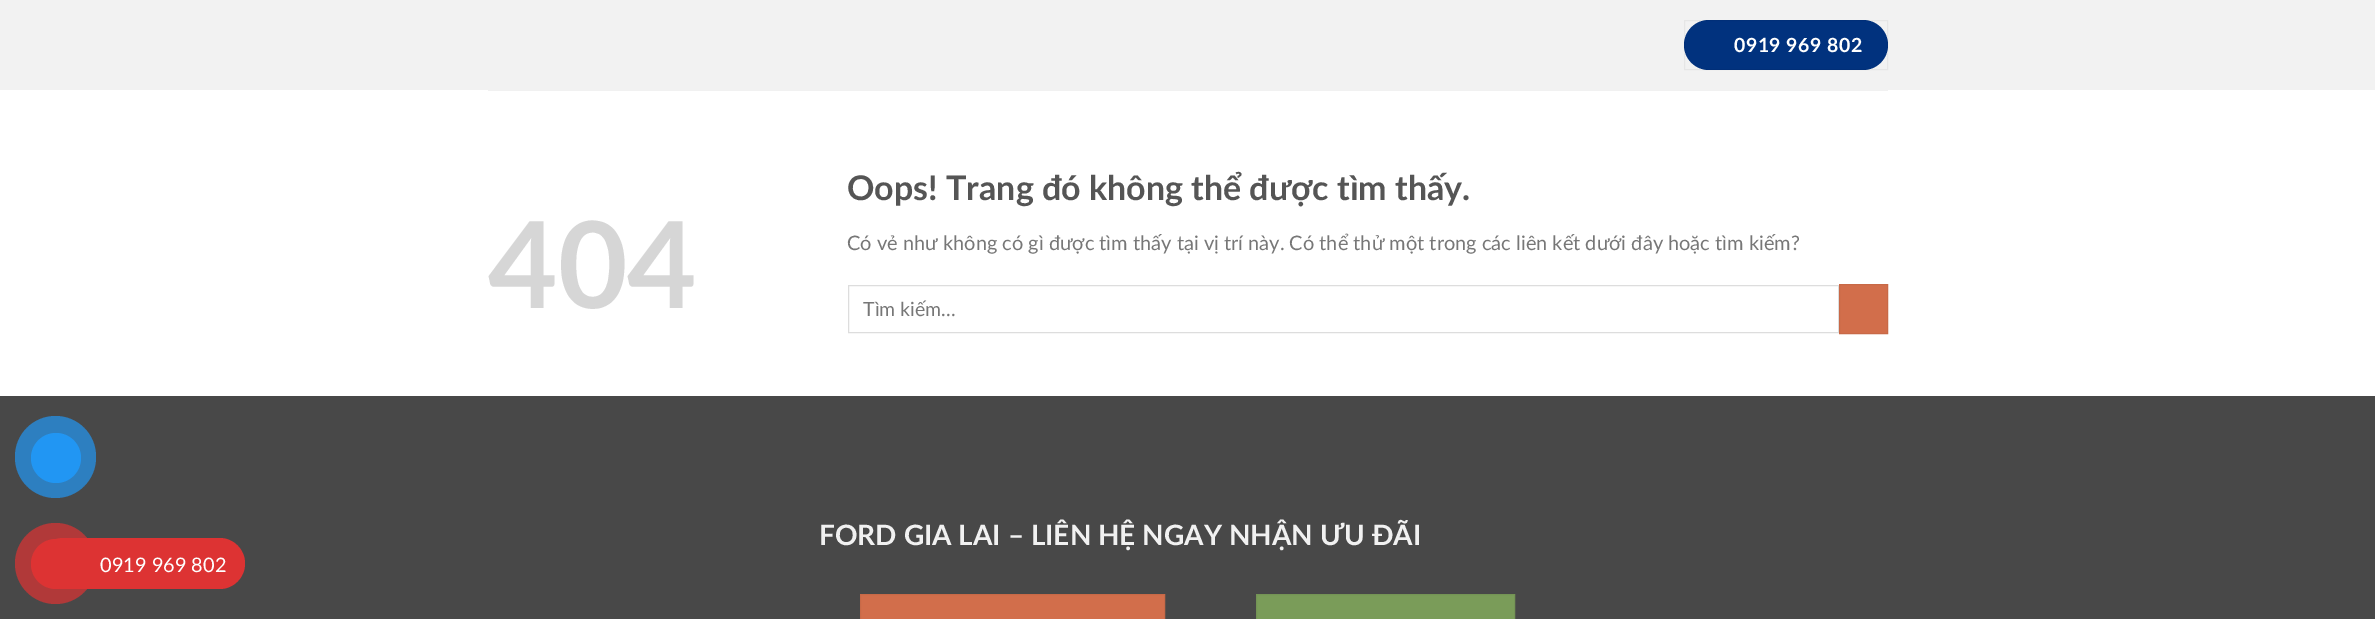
%!PS
<< /PageSize [2375 619] /PageUsesTransparency true >> setpagedevice
/rgb { 3 { 255 div 3 1 roll } repeat setrgbcolor } def
/font { [ exch dup neg 0 0 3 -1 roll 0 0 ] selectfont } def
/alpha { dup .setfillconstantalpha .setstrokeconstantalpha } def
/circle { newpath 0 360 arc closepath } def
/roundrect { 5 dict begin { /r /h /w /y /x } { exch def } forall
  x r add y moveto x w add y 2 copy h add r arct x w add y h add x 1 index r arct
  x y h add x y r arct x y 2 copy exch w add exch r arct closepath end } def
0 .pushpdf14devicefilter
0 619 translate 1 -1 scale
4 setmiterlimit
255 255 255 rgb
0 0 2375 619 rectfill
242 242 242 rgb
0 0 2375 90 rectfill
1 50 126 rgb
1684 20 204 50 25 roundrect fill
0.05 alpha
0 0 0 rgb
1684.5 20.5 203 49 rectstroke
1 alpha
241 241 241 rgb
488 90 1400 1 rectfill
221 221 221 rgb
848.5 285.5 990 47 rectstroke
210 110 75 rgb
1839.5 284.5 moveto 1887.5 284.5 lineto 1887.5 333.5 lineto 1839.5 333.5 lineto closepath gsave fill grestore
200 105 71 rgb
stroke
72 72 72 rgb
0 396 2375 223 rectfill
210 110 75 rgb
860.5 594.5 moveto 1164.5 594.5 lineto 1164.5 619.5 lineto 860.5 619.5 lineto closepath gsave fill grestore
200 105 71 rgb
stroke
122 156 89 rgb
1256.5 594.5 moveto 1514.5 594.5 lineto 1514.5 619.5 lineto 1256.5 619.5 lineto closepath gsave fill grestore
116 148 85 rgb
stroke
45 127 192 rgb
15 416 81 82 40.5 roundrect fill
33 150 243 rgb
56 458 25 circle fill
221 51 51 rgb
38 538 207 51 25.5 roundrect fill
0.7 alpha
55.5 563.5 40.5 circle fill
1 alpha
56 564 25 circle fill
/Lato-Bold 19.5 font
255 255 255 rgb
1734 52 moveto 0.5 0 (0919 969 802) ashow
/Lato-Bold 120 font
214 214 214 rgb
488 308 moveto (404) show
/Lato-Bold 34 font
85 85 85 rgb
847 200 moveto (Oops! Trang đó không thể được tìm thấy.) show
/Lato-Regular 20 font
119 119 119 rgb
847 250 moveto (Có vẻ như không có gì được tìm thấy tại vị trí này. Có thể thử một trong các liên kết dưới đây hoặc tìm kiếm?) show
/Lato-Regular 19.5 font
863 316 moveto (Tìm kiếm…) show
/Lato-Bold 28 font
241 241 241 rgb
819 545 moveto (FORD GIA LAI – LIÊN HỆ NGAY NHẬN ƯU ĐÃI) show
/Lato-Regular 20 font
255 255 255 rgb
100 572 moveto (0919 969 802) show
.poppdf14devicefilter showpage
